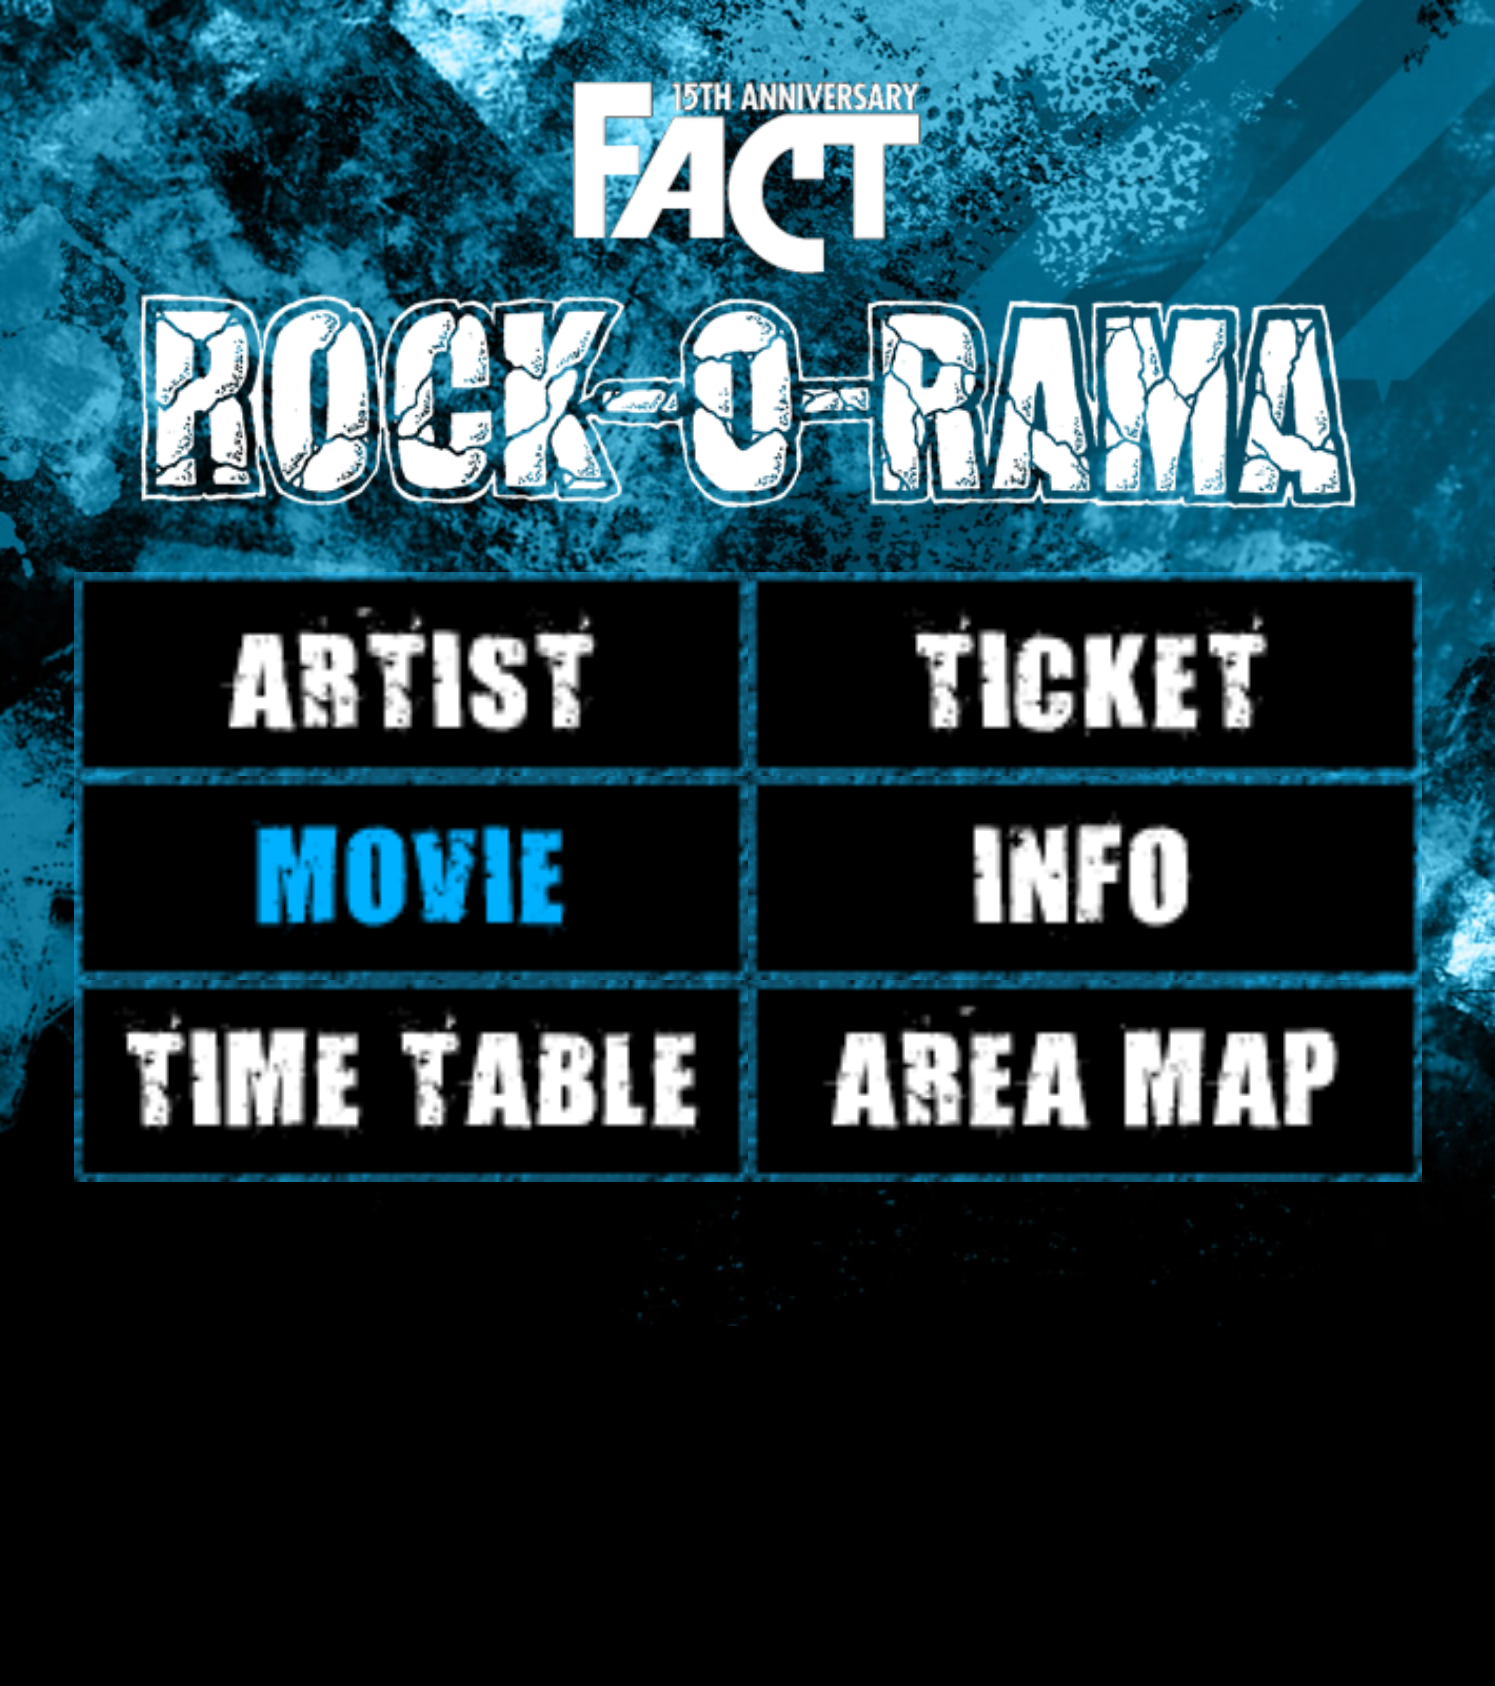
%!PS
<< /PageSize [1495 1686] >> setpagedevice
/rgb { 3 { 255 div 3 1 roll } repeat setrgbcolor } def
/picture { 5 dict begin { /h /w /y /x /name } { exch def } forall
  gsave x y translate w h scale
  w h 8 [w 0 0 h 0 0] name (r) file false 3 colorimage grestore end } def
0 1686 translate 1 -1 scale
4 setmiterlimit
0 0 0 rgb
0 0 1495 1686 rectfill
(img/1.rgb) 0 0 1495 1326 picture
(img/2.rgb) 138 81 1220 431 picture
(img/3.rgb) 74 572 674 204 picture
(img/4.rgb) 748 572 674 204 picture
(img/5.rgb) 74 776 674 204 picture
(img/6.rgb) 748 776 674 204 picture
(img/7.rgb) 74 980 674 202 picture
(img/8.rgb) 748 980 674 202 picture
showpage
